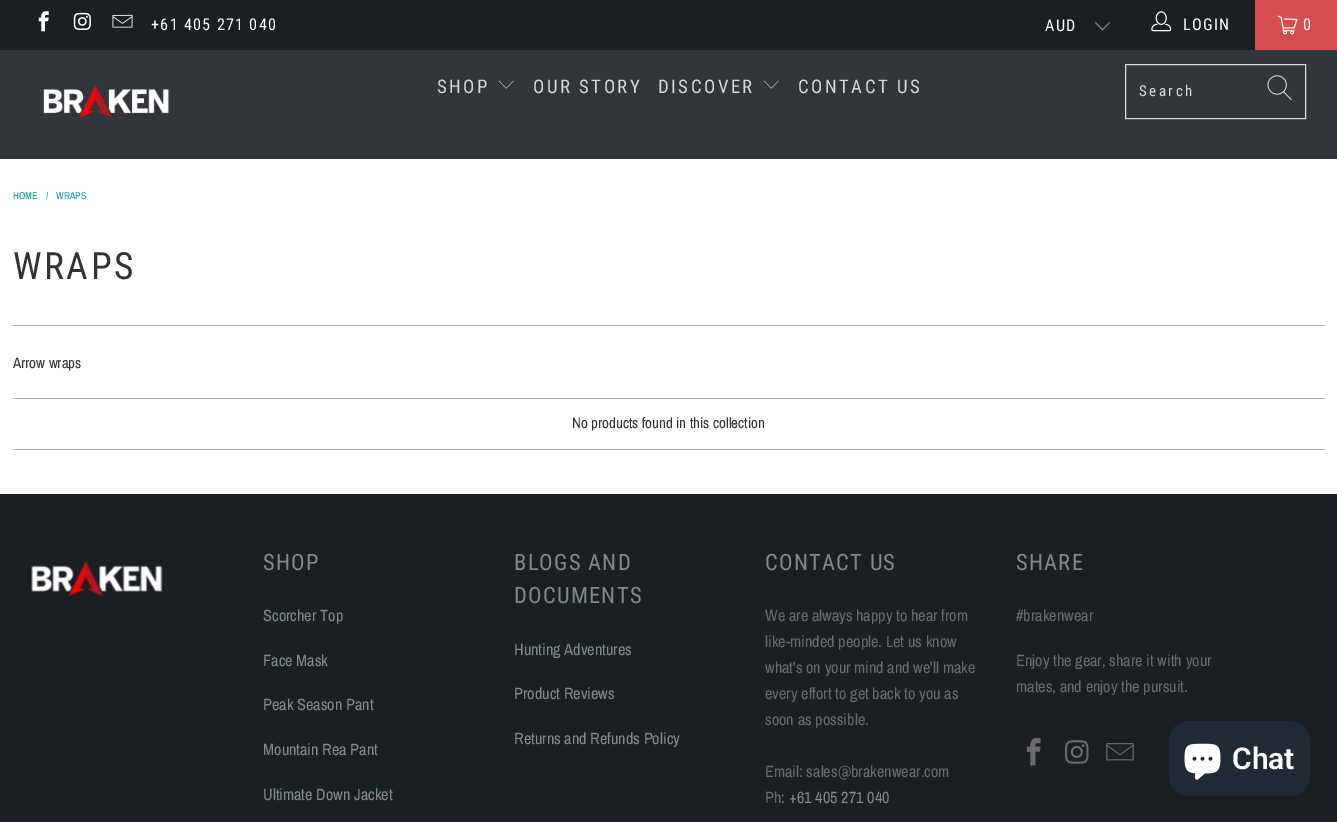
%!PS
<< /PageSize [1337 822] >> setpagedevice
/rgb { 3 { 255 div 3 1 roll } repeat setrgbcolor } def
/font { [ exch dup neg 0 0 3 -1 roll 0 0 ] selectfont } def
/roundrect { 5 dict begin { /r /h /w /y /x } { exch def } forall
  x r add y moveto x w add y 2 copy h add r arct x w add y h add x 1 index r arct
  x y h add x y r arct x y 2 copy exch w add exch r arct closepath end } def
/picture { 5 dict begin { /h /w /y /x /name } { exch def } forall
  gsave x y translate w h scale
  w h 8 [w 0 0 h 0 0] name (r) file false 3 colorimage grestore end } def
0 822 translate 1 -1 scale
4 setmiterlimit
255 255 255 rgb
0 0 1337 822 rectfill
27 31 35 rgb
0 0 1255 50 rectfill
(img/1.rgb) 38 11 11 21 picture
(img/2.rgb) 73 12 18 18 picture
(img/3.rgb) 112 14 21 14 picture
(img/4.rgb) 1095 21 15 10 picture
(img/5.rgb) 1151 11 21 21 picture
213 77 77 rgb
1255 0 82 50 rectfill
(img/6.rgb) 1277 15 21 20 picture
50 53 57 rgb
0 50 1337 109 rectfill
(img/7.rgb) 43 84 126 34 picture
(img/8.rgb) 498 80 16 9 picture
(img/8.rgb) 763 80 16 9 picture
217 217 217 rgb
1125.5 64.5 180 54 rectstroke
(img/9.rgb) 1267 75 25 26 picture
[
  [13 325 1312 1 170 170 170]
  [13 398 1312 1 170 170 170]
  [13 449 1312 1 170 170 170]
  [0 494 1337 328 27 31 35]
] { aload pop rgb rectfill } forall
(img/10.rgb) 31 561 132 36 picture
(img/11.rgb) 1026 738 15 28 picture
(img/12.rgb) 1065 740 24 24 picture
(img/13.rgb) 1106 743 28 18 picture
32 42 54 rgb
1169 721 141 75 20 roundrect fill
(img/14.rgb) 1184 743 37 37 picture
/RobotoCondensed-Regular 16.25 font
255 255 255 rgb
151 30 moveto 1.25 0 (+61 405 271 040) ashow
1045 31 moveto 1.25 0 (AUD) ashow
1183 30 moveto 1.25 0 (LOGIN) ashow
1303 30 moveto 1.25 0 (0) ashow
/RobotoCondensed-Regular 18.75 font
217 217 217 rgb
437 93 moveto 2.5 0 (SHOP) ashow
533 93 moveto 2.5 0 (OUR STORY) ashow
658 93 moveto 2.5 0 (DISCOVER) ashow
798 93 moveto 2.5 0 (CONTACT US) ashow
/RobotoCondensed-Regular 15 font
1139 96 moveto 2.5 0 (Search) ashow
/ArchivoNarrow-Regular 10 font
3 161 150 rgb
[
  [(HOME) 13 199]
  [(/) 46 199]
  [(WRAPS) 56 199]
] { aload pop moveto show } forall
/RobotoCondensed-Regular 37.5 font
51 51 51 rgb
13 279 moveto 2.5 0 (WRAPS) ashow
/ArchivoNarrow-Regular 15 font
13 368 moveto (Arrow wraps) show
572 428 moveto (No products found in this collection) show
/RobotoCondensed-Regular 22.5 font
127 140 141 rgb
263 570 moveto 1.25 0 (SHOP) ashow
/ArchivoNarrow-Regular 16.25 font
[
  [(Scorcher Top) 263 621]
  [(Face Mask) 263 666]
  [(Peak Season Pant) 263 710]
  [(Mountain Rea Pant) 263 755]
  [(Ultimate Down Jacket) 263 800]
] { aload pop moveto show } forall
/RobotoCondensed-Regular 22.5 font
514 570 moveto 1.25 0 (BLOGS AND) ashow
514 603 moveto 1.25 0 (DOCUMENTS) ashow
/ArchivoNarrow-Regular 16.25 font
[
  [(Hunting Adventures) 514 655]
  [(Product Reviews) 514 699]
  [(Returns and Refunds Policy) 514 744]
] { aload pop moveto show } forall
/RobotoCondensed-Regular 22.5 font
765 570 moveto 1.25 0 (CONTACT US) ashow
/ArchivoNarrow-Regular 16.25 font
107 107 107 rgb
[
  [(We are always happy to hear from) 765 621]
  [(like-minded people. Let us know) 765 647]
  [(what's on your mind and we'll make) 765 673]
  [(every effort to get back to you as) 765 699]
  [(soon as possible.) 765 725]
  [(Email: sales@brakenwear.com) 765 777]
  [(Ph:) 765 803]
] { aload pop moveto show } forall
127 140 141 rgb
789 803 moveto (+61 405 271 040) show
/RobotoCondensed-Regular 22.5 font
1016 570 moveto 1.25 0 (SHARE) ashow
/ArchivoNarrow-Regular 16.25 font
107 107 107 rgb
[
  [(#brakenwear) 1016 621]
  [(Enjoy the gear, share it with your) 1016 666]
  [(mates, and enjoy the pursuit.) 1016 692]
] { aload pop moveto show } forall
/Roboto-SemiBold 30 font
255 255 255 rgb
1232 769 moveto (Chat) show
showpage
